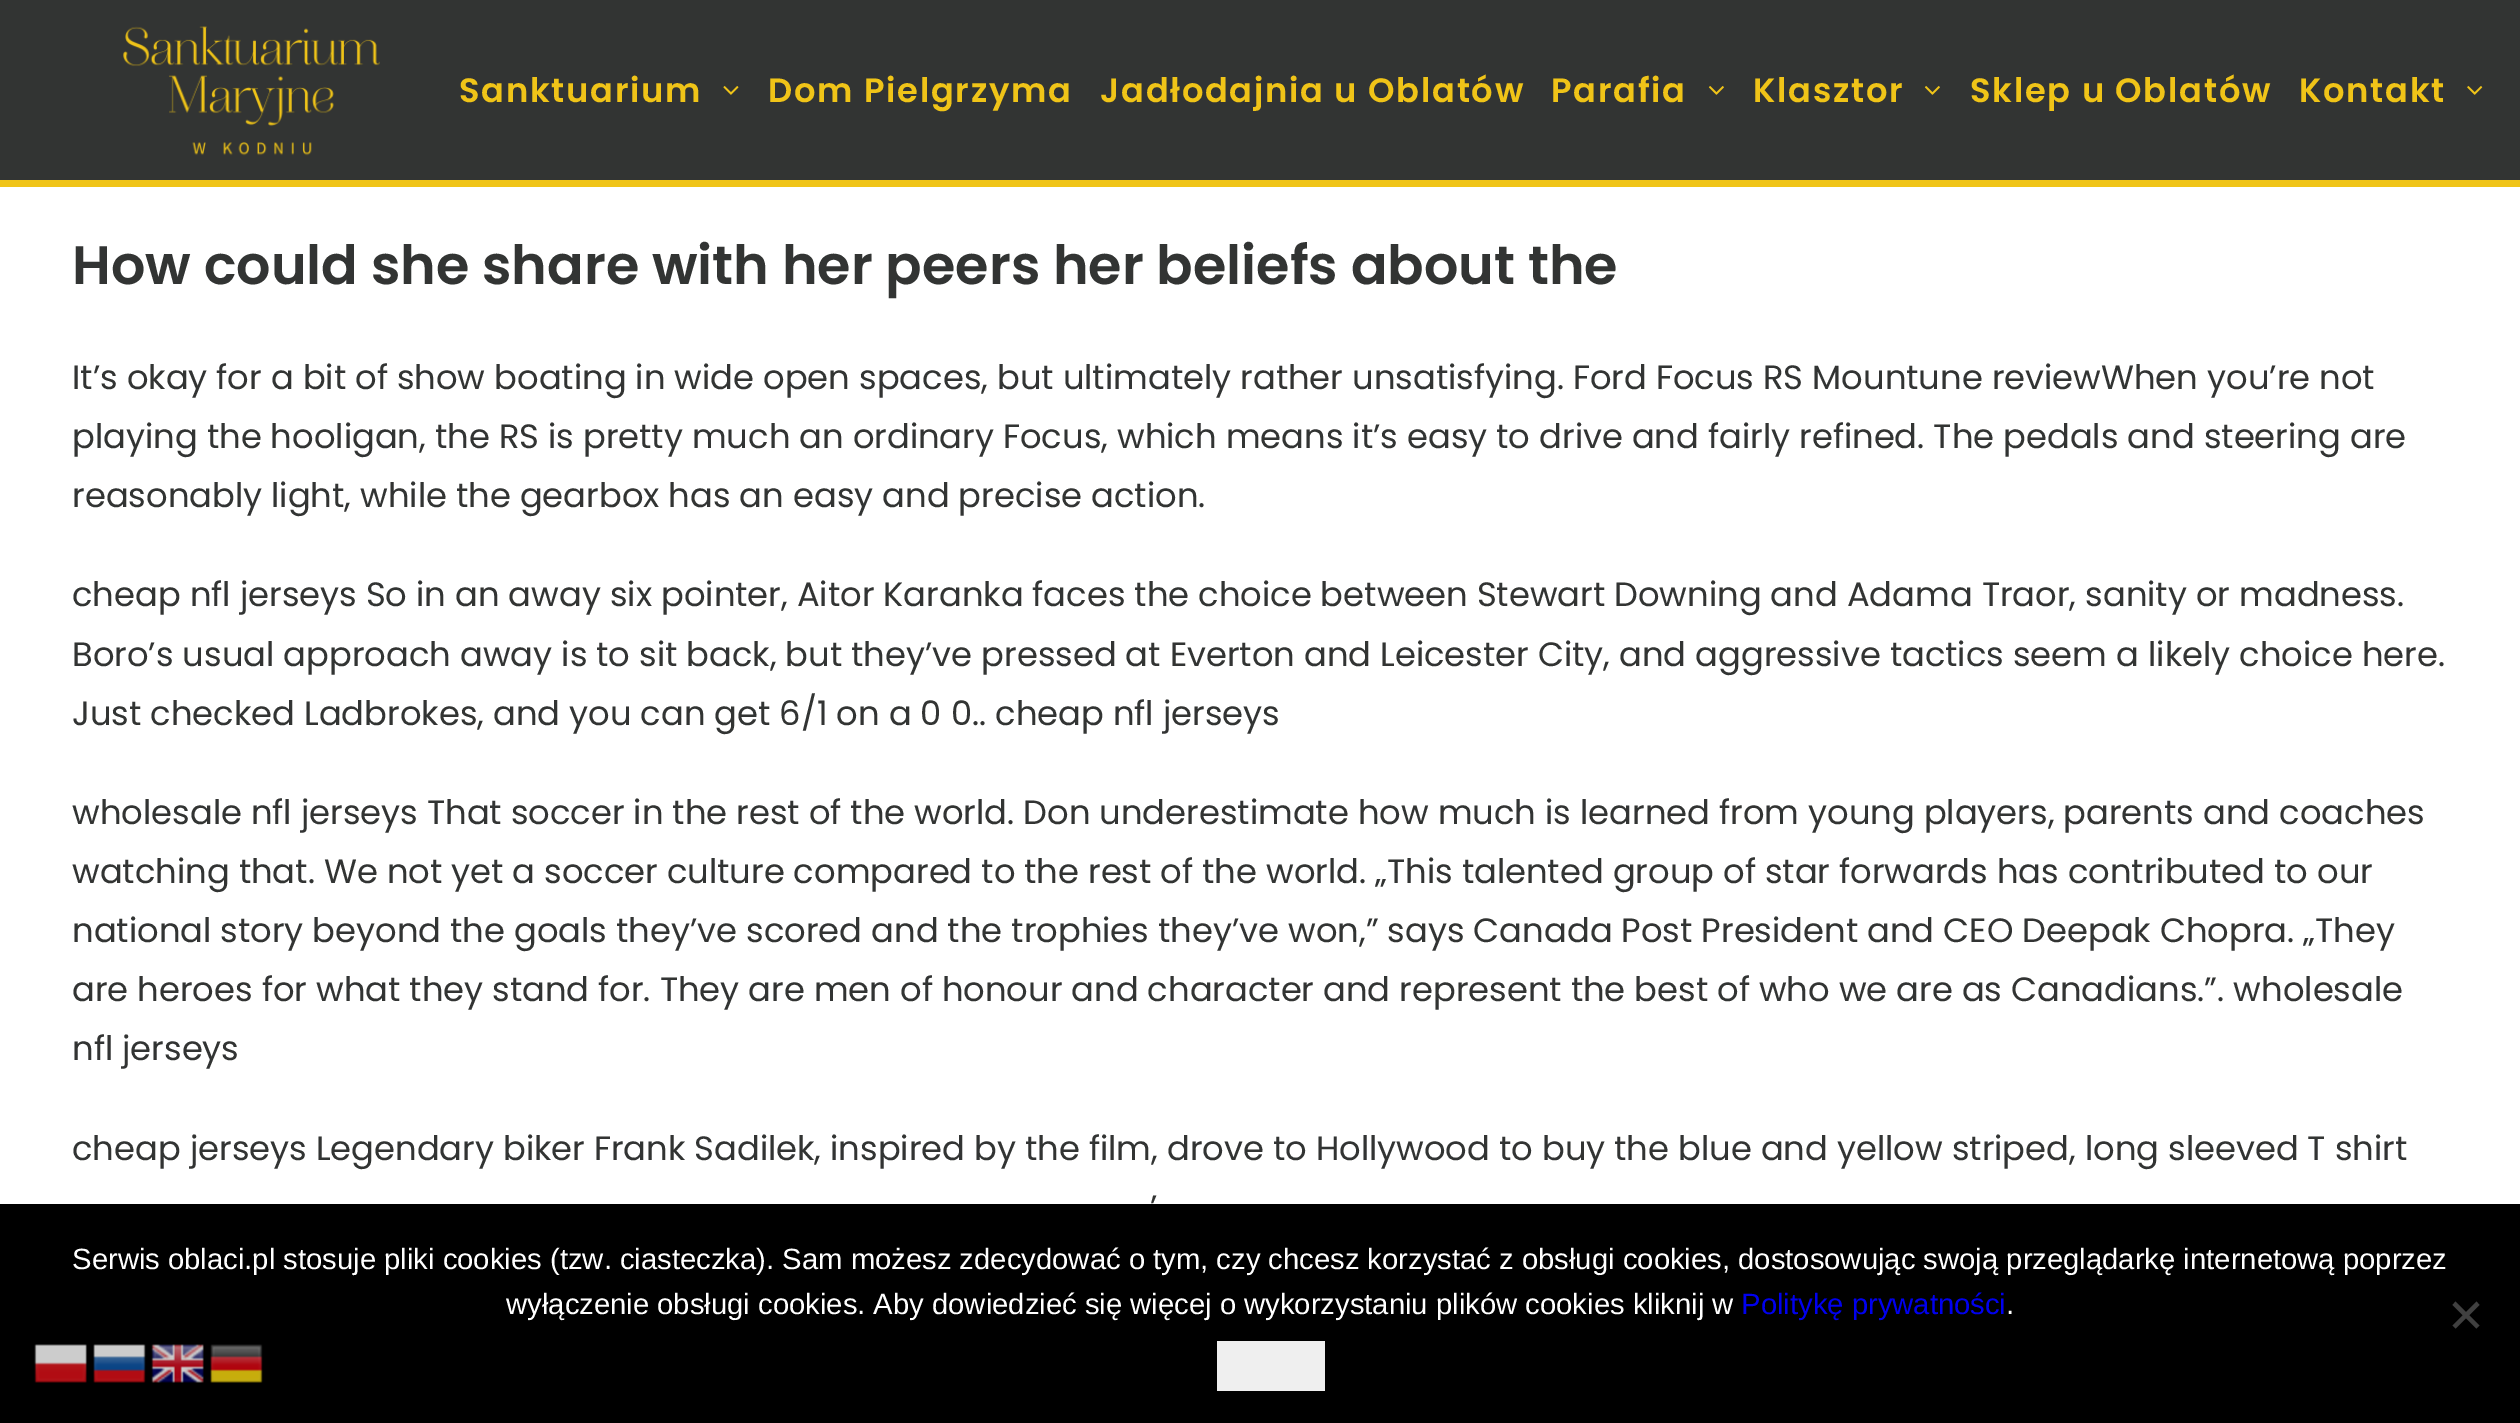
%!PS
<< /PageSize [2520 1423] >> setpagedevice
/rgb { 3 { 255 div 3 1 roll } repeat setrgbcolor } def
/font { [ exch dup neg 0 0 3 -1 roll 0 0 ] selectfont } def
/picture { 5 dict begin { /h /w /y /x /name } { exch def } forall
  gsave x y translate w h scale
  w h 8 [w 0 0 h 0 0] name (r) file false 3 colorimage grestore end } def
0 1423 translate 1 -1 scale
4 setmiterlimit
255 255 255 rgb
0 0 2520 1423 rectfill
50 52 51 rgb
0 0 2520 180 rectfill
240 196 24 rgb
0 180 2520 7 rectfill
(img/1.rgb) 123 26 257 130 picture
(img/2.rgb) 723 86 16 9 picture
(img/3.rgb) 1708 86 16 9 picture
(img/3.rgb) 1924 86 16 9 picture
(img/4.rgb) 2467 86 16 9 picture
0 0 0 rgb
0 1204 2520 219 rectfill
64 64 64 rgb
2476.5 1301.5 moveto 2479.5 1305 lineto 2455.5 1328.5 lineto 2452.5 1325.5 lineto closepath fill
2452.5 1305 moveto 2455.5 1301.5 lineto 2479.5 1325.5 lineto 2476.5 1328.5 lineto closepath fill
239 239 239 rgb
1217 1341 108 50 rectfill
(img/5.rgb) 34 1344 53 39 picture
(img/6.rgb) 93 1344 53 39 picture
(img/7.rgb) 151 1344 53 39 picture
(img/8.rgb) 210 1344 53 39 picture
/Poppins-SemiBold 33.75 font
240 196 24 rgb
459 102 moveto 1.7 0 (Sanktuarium) ashow
768 102 moveto 1.7 0 (Dom Pielgrzyma) ashow
1100 102 moveto 1.7 0 (Jadłodajnia u Oblatów) ashow
1551 102 moveto 1.7 0 (Parafia) ashow
1753 102 moveto 1.7 0 (Klasztor) ashow
1970 102 moveto 1.7 0 (Sklep u Oblatów) ashow
2299 102 moveto 1.7 0 (Kontakt) ashow
/Poppins-SemiBold 54 font
50 52 51 rgb
72 284 moveto (How could she share with her peers her beliefs about the) show
/Poppins-Regular 33.75 font
[
  [(It’s okay for a bit of show boating in wide open spaces, but ultimately rather unsatisfying. Ford Focus RS Mountune reviewWhen you’re not) 72 389]
  [(playing the hooligan, the RS is pretty much an ordinary Focus, which means it’s easy to drive and fairly refined. The pedals and steering are) 72 448]
  [(reasonably light, while the gearbox has an easy and precise action.) 72 507]
  [(cheap nfl jerseys So in an away six pointer, Aitor Karanka faces the choice between Stewart Downing and Adama Traor, sanity or madness.) 72 606]
  [(Boro’s usual approach away is to sit back, but they’ve pressed at Everton and Leicester City, and aggressive tactics seem a likely choice here.) 72 666]
  [(Just checked Ladbrokes, and you can get 6/1 on a 0 0.. cheap nfl jerseys) 72 725]
  [(wholesale nfl jerseys That soccer in the rest of the world. Don underestimate how much is learned from young players, parents and coaches) 72 824]
  [(watching that. We not yet a soccer culture compared to the rest of the world. „This talented group of star forwards has contributed to our) 72 883]
  [(national story beyond the goals they’ve scored and the trophies they’ve won,” says Canada Post President and CEO Deepak Chopra. „They) 72 942]
  [(are heroes for what they stand for. They are men of honour and character and represent the best of who we are as Canadians.”. wholesale) 72 1001]
  [(nfl jerseys) 72 1060]
  [(cheap jerseys Legendary biker Frank Sadilek, inspired by the film, drove to Hollywood to buy the blue and yellow striped, long sleeved T shirt) 72 1160]
  [(’) 1150 1219]
] { aload pop moveto show } forall
/LiberationSans-Regular 29.25 font
255 255 255 rgb
72 1269 moveto (Serwis oblaci.pl stosuje pliki cookies \(tzw. ciasteczka\). Sam możesz zdecydować o tym, czy chcesz korzystać z obsługi cookies, dostosowując swoją przeglądarkę internetową poprzez) show
506 1314 moveto (wyłączenie obsługi cookies. Aby dowiedzieć się więcej o wykorzystaniu plików cookies kliknij w) show
0 0 238 rgb
1741 1314 moveto (Politykę prywatności) show
255 255 255 rgb
2006 1314 moveto (.) show
showpage
